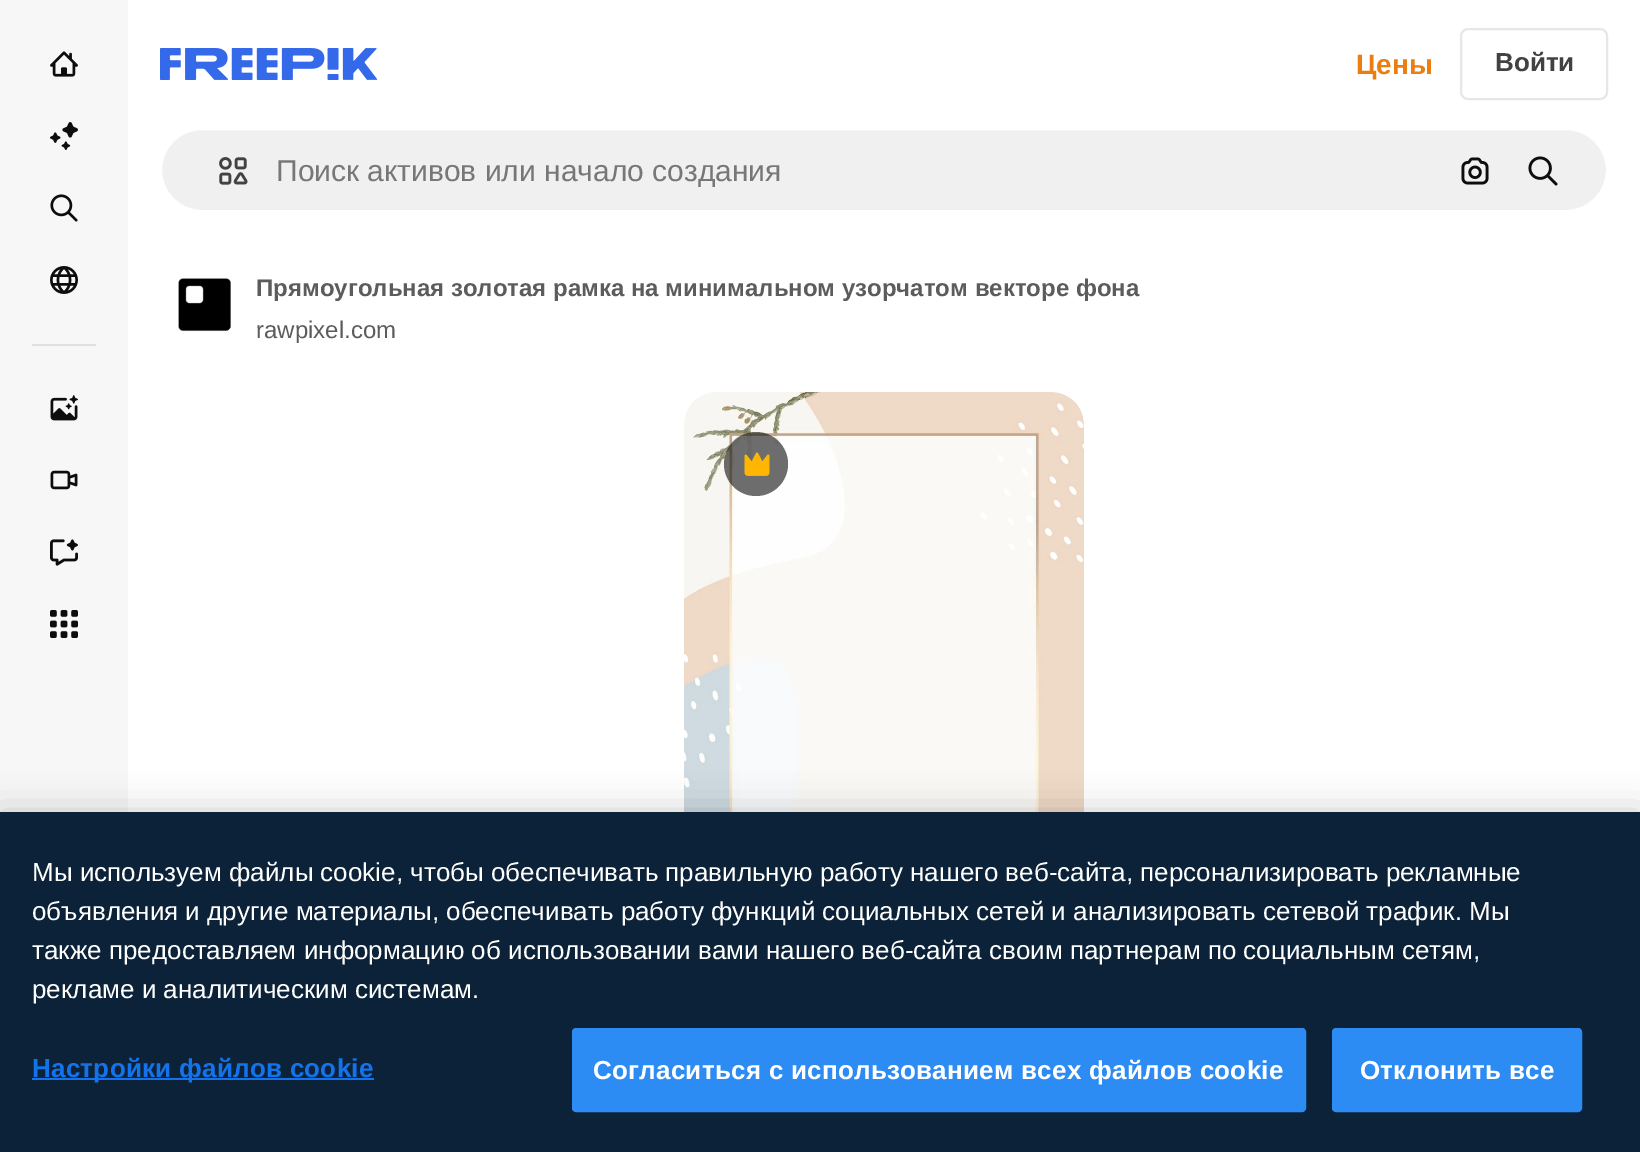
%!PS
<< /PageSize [1640 1152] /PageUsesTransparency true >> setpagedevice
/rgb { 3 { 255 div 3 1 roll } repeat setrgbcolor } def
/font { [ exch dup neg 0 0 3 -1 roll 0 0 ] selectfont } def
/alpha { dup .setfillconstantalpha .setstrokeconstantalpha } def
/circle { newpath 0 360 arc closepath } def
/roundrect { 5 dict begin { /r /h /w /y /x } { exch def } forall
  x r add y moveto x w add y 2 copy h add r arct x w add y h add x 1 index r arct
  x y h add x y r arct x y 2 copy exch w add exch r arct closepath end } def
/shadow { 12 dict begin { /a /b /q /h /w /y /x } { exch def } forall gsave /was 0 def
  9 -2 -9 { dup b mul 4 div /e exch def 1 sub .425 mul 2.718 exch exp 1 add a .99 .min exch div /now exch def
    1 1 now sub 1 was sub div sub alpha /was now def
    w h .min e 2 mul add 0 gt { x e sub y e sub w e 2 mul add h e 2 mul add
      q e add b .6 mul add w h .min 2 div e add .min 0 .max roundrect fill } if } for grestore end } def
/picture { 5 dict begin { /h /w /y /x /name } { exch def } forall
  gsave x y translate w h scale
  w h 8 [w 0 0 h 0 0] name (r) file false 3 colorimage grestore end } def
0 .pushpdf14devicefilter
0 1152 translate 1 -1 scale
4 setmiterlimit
255 255 255 rgb
0 0 1640 1152 rectfill
247 247 247 rgb
0 0 128 812 rectfill
(img/1.rgb) 50 51 28 26 picture
(img/2.rgb) 50 122 28 28 picture
(img/3.rgb) 50 194 28 28 picture
(img/4.rgb) 50 266 28 28 picture
224 224 224 rgb
32 344 64 2 rectfill
(img/5.rgb) 50 395 28 26 picture
(img/6.rgb) 50 470 28 20 picture
(img/7.rgb) 50 539 28 27 picture
(img/8.rgb) 50 610 28 28 picture
(img/9.rgb) 160 48 218 32 picture
231 231 231 rgb
2 setlinewidth
1461 29 146 70 7 roundrect stroke
240 240 240 rgb
161 129 1446 82 41 roundrect gsave fill grestore
255 255 255 rgb
stroke
(img/10.rgb) 219 157 29 28 picture
(img/11.rgb) 1461 157 28 28 picture
(img/12.rgb) 1528 156 30 30 picture
(img/13.rgb) 178 278 53 54 picture
(img/14.rgb) 684 392 400 420 picture
0.6 alpha
13 13 13 rgb
756 464 32 circle fill
1 alpha
(img/15.rgb) 744 452 26 24 picture
0 0 0 rgb
0 812 1640 340 0 18 0.2 shadow
11 34 57 rgb
0 812 1640 340 rectfill
18 115 235 rgb
32 1078 342 2 rectfill
44 140 244 rgb
573 1029 732 82 3 roundrect gsave fill grestore
stroke
1333 1029 248 82 3 roundrect gsave fill grestore
stroke
/LiberationSans-Bold 28 font
234 126 17 rgb
1356 74 moveto (Цены) show
/LiberationSans-Bold 26 font
66 66 66 rgb
1495 71 moveto (Войти) show
/LiberationSans-Regular 30 font
119 119 119 rgb
276 181 moveto (Поиск активов или начало создания) show
/LiberationSans-Bold 24 font
92 92 92 rgb
256 296 moveto (Прямоугольная золотая рамка на минимальном узорчатом векторе фона) show
/LiberationSans-Regular 24 font
256 338 moveto (rawpixel.com) show
/LiberationSans-Regular 26.02 font
255 255 255 rgb
[
  [(Мы используем файлы cookie, чтобы обеспечивать правильную работу нашего веб-сайта, персонализировать рекламные) 32 881]
  [(объявления и другие материалы, обеспечивать работу функций социальных сетей и анализировать сетевой трафик. Мы) 32 920]
  [(также предоставляем информацию об использовании вами нашего веб-сайта своим партнерам по социальным сетям,) 32 959]
  [(рекламе и аналитическим системам.) 32 998]
] { aload pop moveto show } forall
/LiberationSans-Bold 26.02 font
18 115 235 rgb
32 1077 moveto 0.25 0 (Настройки файлов cookie) ashow
255 255 255 rgb
593 1079 moveto 0.25 0 (Согласиться с использованием всех файлов cookie) ashow
1360 1079 moveto 0.25 0 (Отклонить все) ashow
.poppdf14devicefilter showpage
